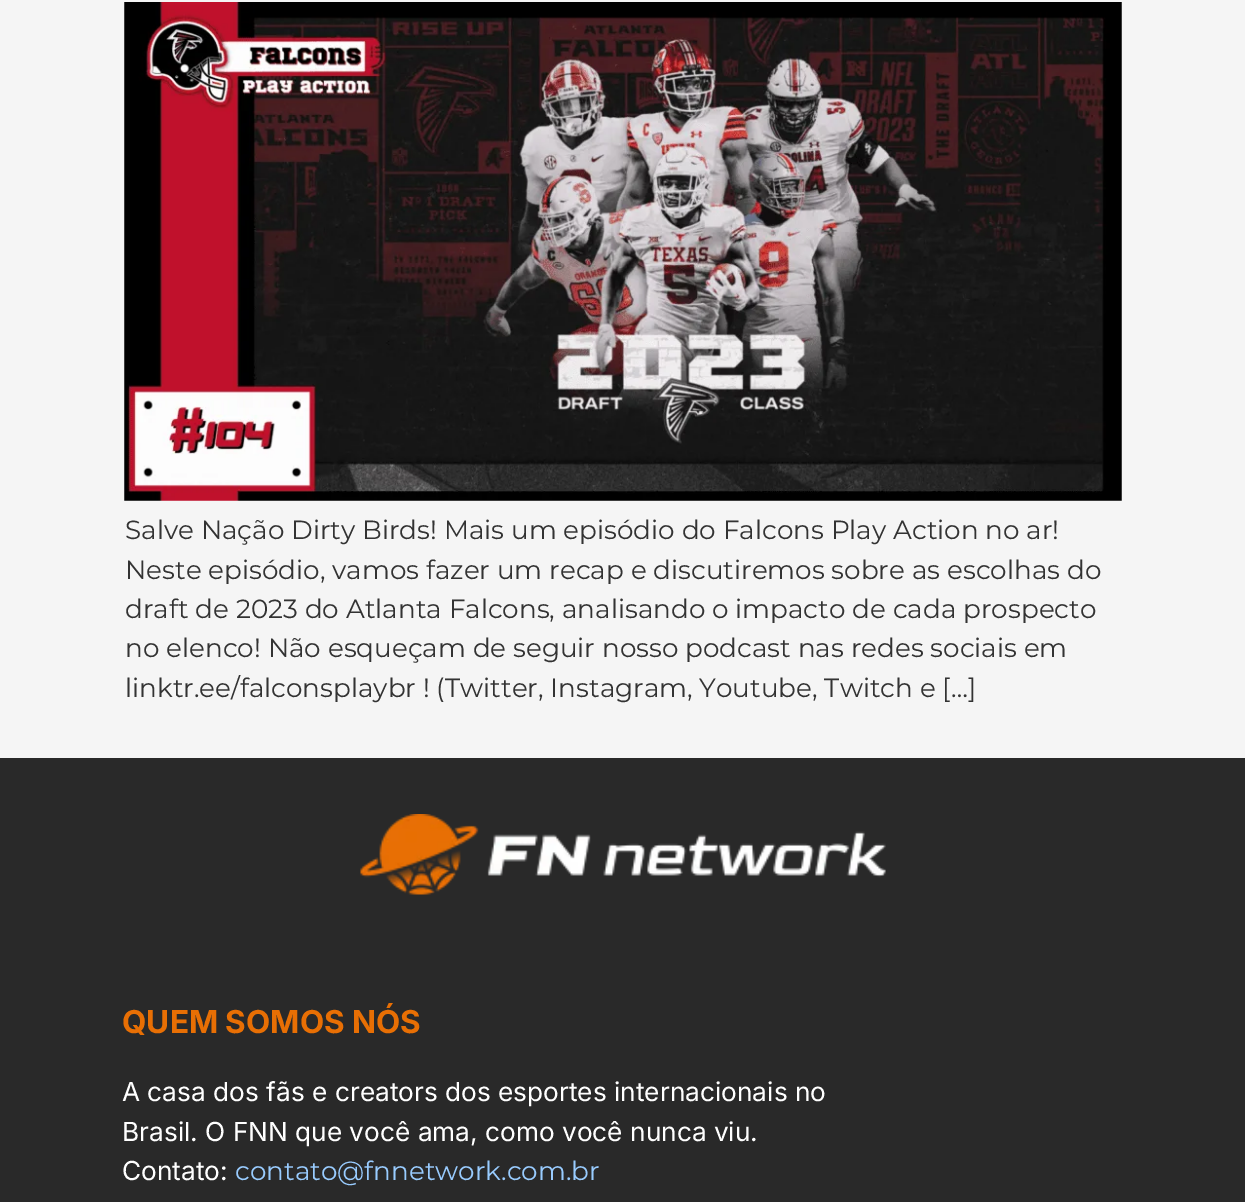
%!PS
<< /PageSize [1245 1202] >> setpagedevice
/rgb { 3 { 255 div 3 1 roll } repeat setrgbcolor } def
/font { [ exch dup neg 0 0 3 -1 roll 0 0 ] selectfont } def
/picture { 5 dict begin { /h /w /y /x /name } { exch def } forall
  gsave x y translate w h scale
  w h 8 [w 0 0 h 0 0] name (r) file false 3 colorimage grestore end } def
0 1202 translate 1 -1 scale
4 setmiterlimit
245 245 245 rgb
0 0 1245 1202 rectfill
(img/1.rgb) 124 2 998 499 picture
41 41 41 rgb
0 758 1245 444 rectfill
(img/2.rgb) 360 814 526 81 picture
/Montserrat-Regular 26.25 font
51 51 51 rgb
[
  [(Salve Nação Dirty Birds! Mais um episódio do Falcons Play Action no ar!) 125 539]
  [(Neste episódio, vamos fazer um recap e discutiremos sobre as escolhas do) 125 579]
  [(draft de 2023 do Atlanta Falcons, analisando o impacto de cada prospecto) 125 618]
  [(no elenco! Não esqueçam de seguir nosso podcast nas redes sociais em) 125 657]
  [(linktr.ee/falconsplaybr ! \(Twitter, Instagram, Youtube, Twitch e […]) 125 697]
] { aload pop moveto show } forall
/Inter-Bold 31.5 font
232 111 4 rgb
122 1033 moveto (QUEM SOMOS NÓS) show
/Inter-Regular 26.25 font
255 255 255 rgb
[
  [(A casa dos fãs e creators dos esportes internacionais no) 122 1101]
  [(Brasil. O FNN que você ama, como você nunca viu.) 122 1141]
  [(Contato:) 122 1180]
] { aload pop moveto show } forall
/Montserrat-Regular 26.25 font
153 204 255 rgb
235 1180 moveto (contato@fnnetwork.com.br) show
showpage
